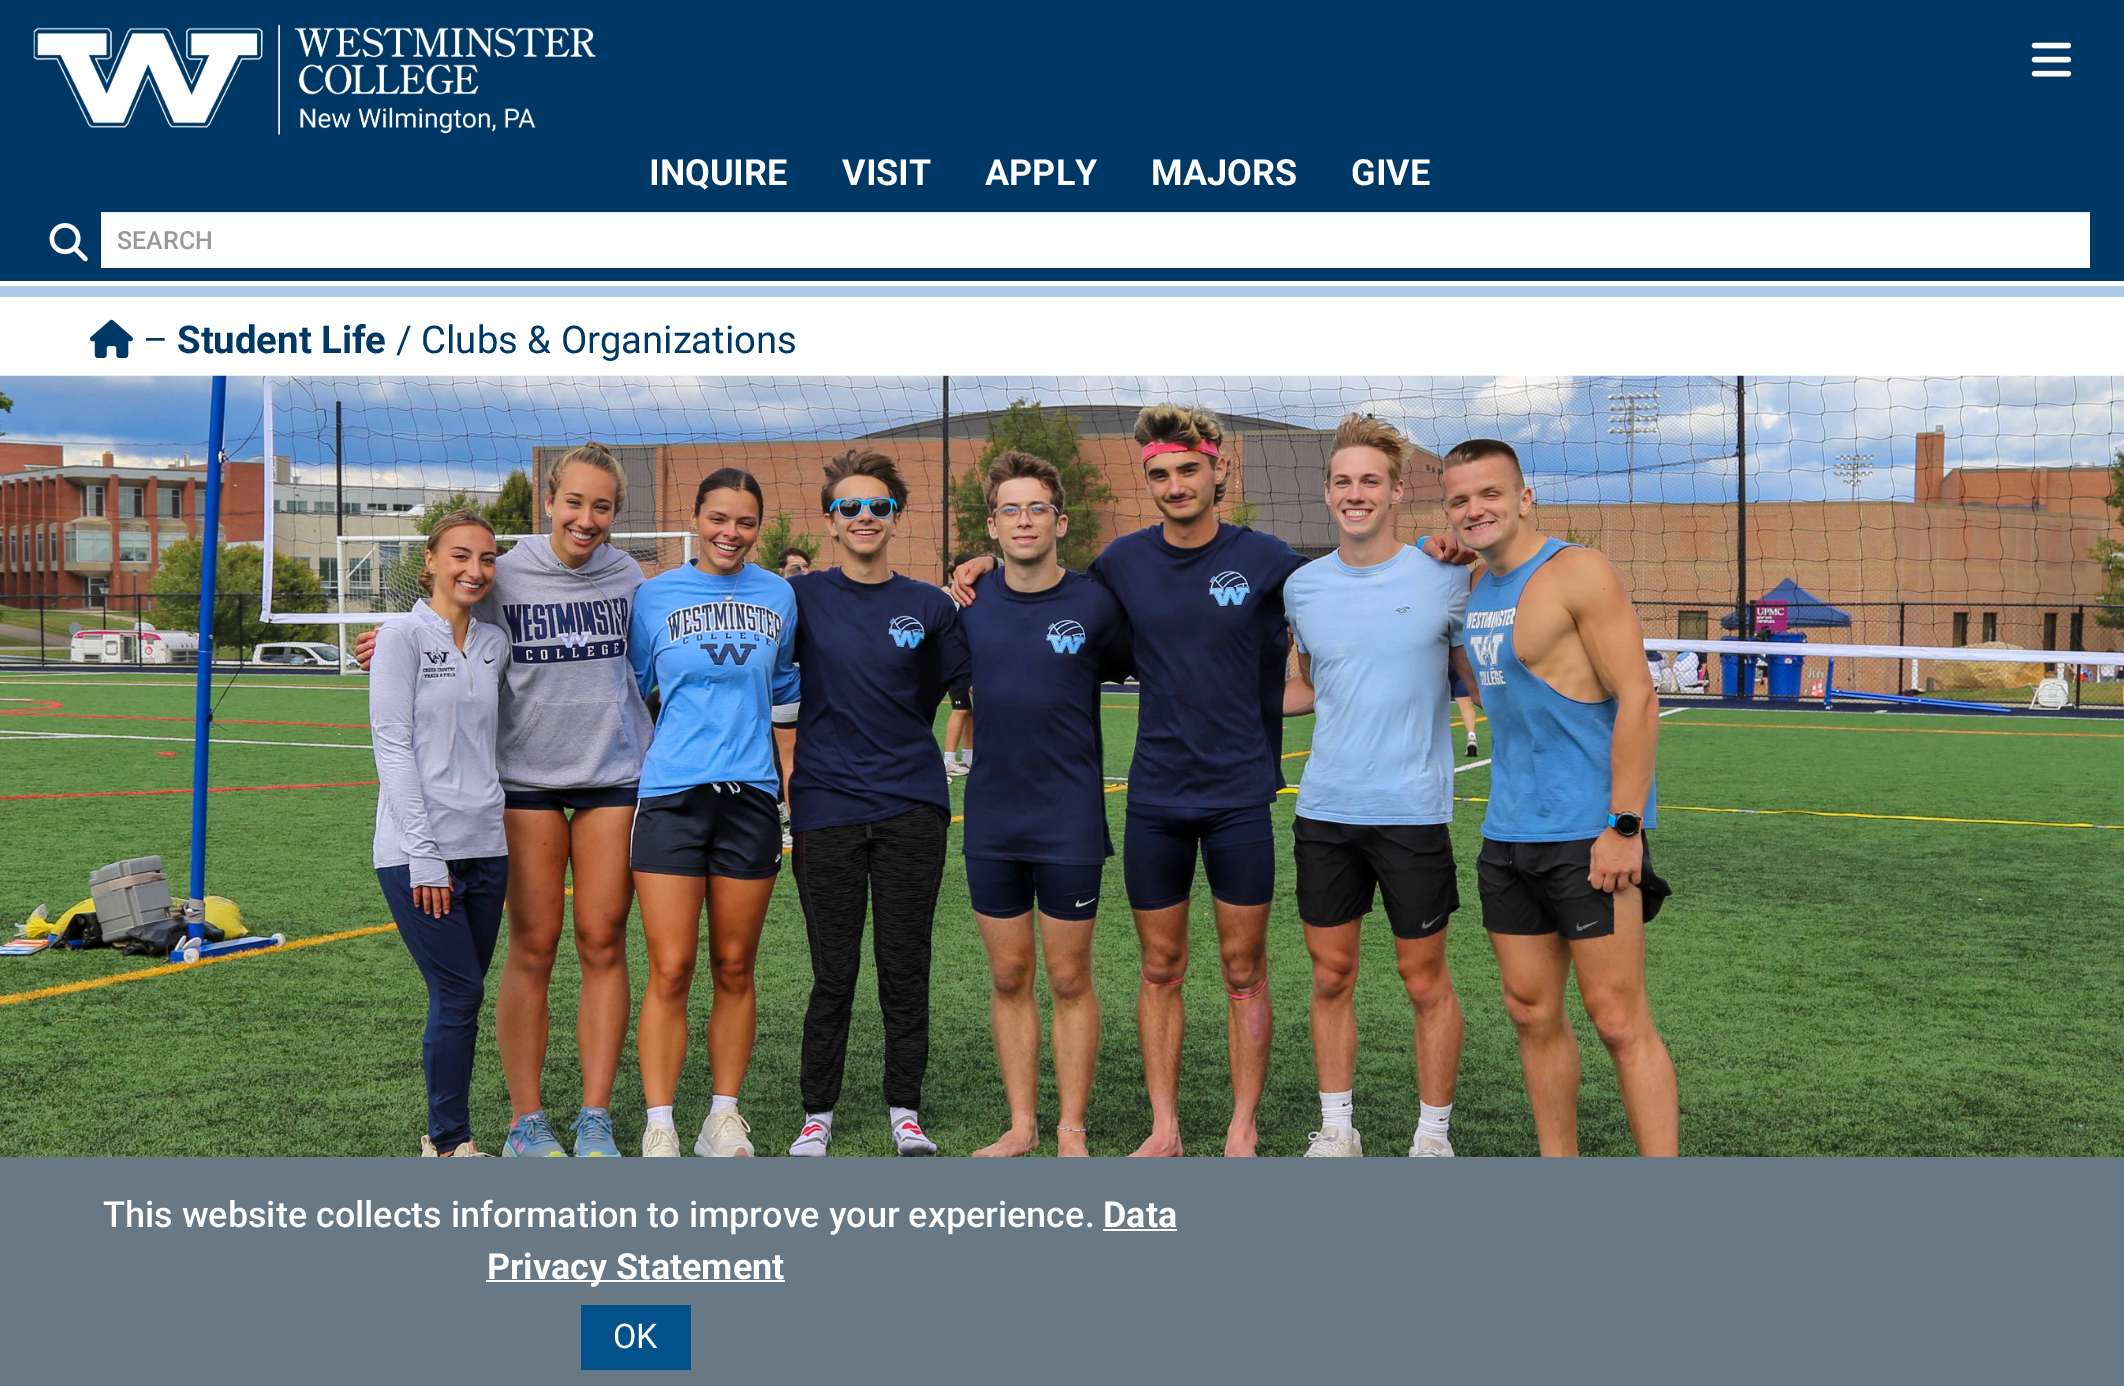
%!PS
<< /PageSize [2124 1386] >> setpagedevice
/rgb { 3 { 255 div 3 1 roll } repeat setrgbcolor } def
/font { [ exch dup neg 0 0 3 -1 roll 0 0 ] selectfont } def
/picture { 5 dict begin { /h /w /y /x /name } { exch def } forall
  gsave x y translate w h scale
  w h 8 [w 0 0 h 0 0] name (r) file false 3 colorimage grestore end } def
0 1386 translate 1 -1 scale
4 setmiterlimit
255 255 255 rgb
0 0 2124 1386 rectfill
0 56 101 rgb
0 0 2124 281 rectfill
(img/1.rgb) 33 24 563 112 picture
(img/2.rgb) 2031 42 41 35 picture
(img/3.rgb) 49 223 39 39 picture
[
  [101 214 1989 54 255 255 255]
  [101 212 1989 2 236 236 236]
  [0 286 2124 11 171 202 233]
] { aload pop rgb rectfill } forall
(img/4.rgb) 90 319 43 39 picture
(img/5.rgb) 0 375 2124 782 picture
[
  [0 1157 2124 229 104 120 132]
  [1103 1229 74 2 255 255 255]
  [486 1280 299 2 255 255 255]
  [581 1305 110 65 2 81 138]
] { aload pop rgb rectfill } forall
/Roboto-Bold 36 font
255 255 255 rgb
[
  [(INQUIRE) 649 185]
  [(VISIT) 842 185]
  [(APPLY) 985 185]
  [(MAJORS) 1151 185]
  [(GIVE) 1351 185]
] { aload pop moveto show } forall
/Roboto-Medium 25 font
153 153 153 rgb
117 249 moveto (SEARCH) show
/Roboto-Regular 38.25 font
0 56 101 rgb
143 353 moveto (–) show
/Roboto-Bold 38.25 font
177 353 moveto (Student Life) show
/Roboto-Regular 38.25 font
396 353 moveto (/ Clubs & Organizations) show
/Roboto-Medium 36 font
255 255 255 rgb
103 1227 moveto (This website collects information to improve your experience.) show
/Roboto-Bold 36 font
1103 1227 moveto (Data) show
487 1279 moveto (Privacy Statement) show
/Roboto-Regular 34 font
613 1348 moveto (OK) show
showpage
